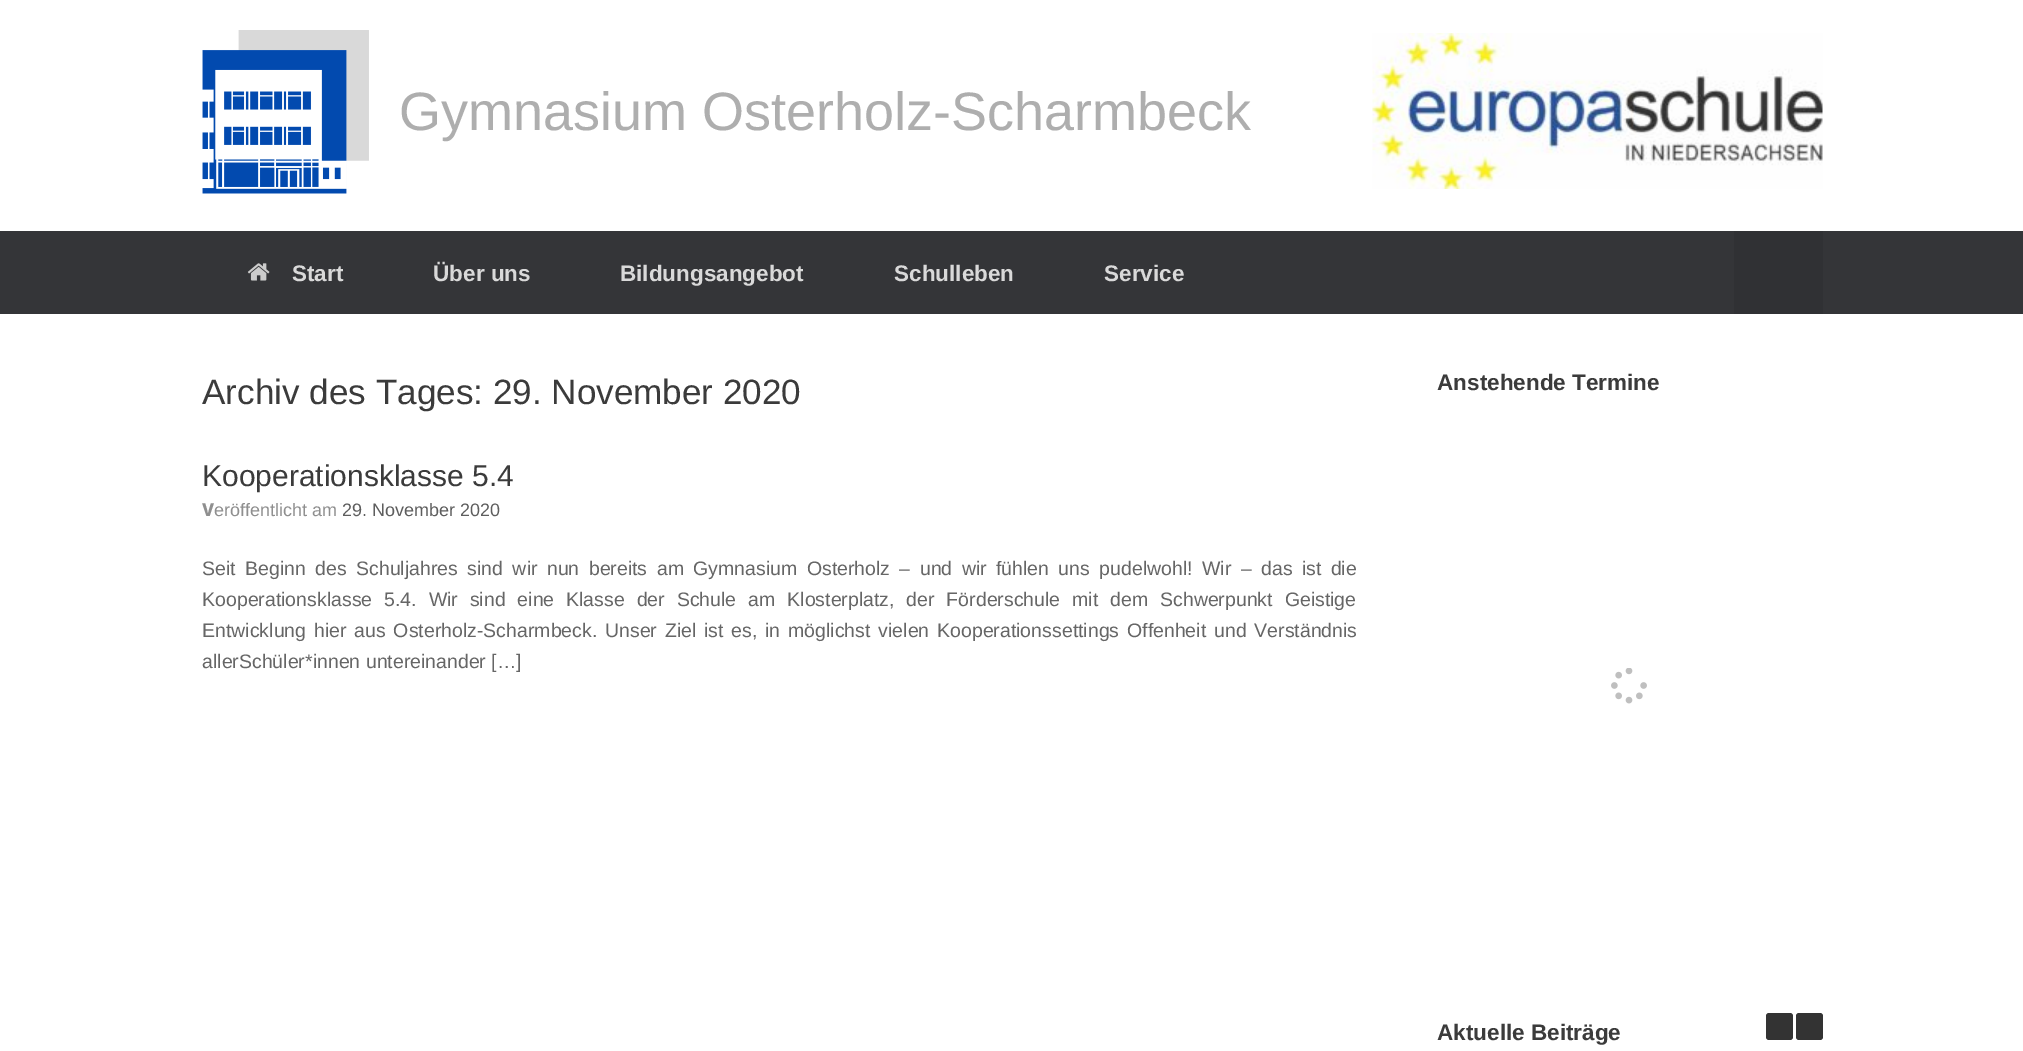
%!PS
<< /PageSize [2023 1051] >> setpagedevice
/rgb { 3 { 255 div 3 1 roll } repeat setrgbcolor } def
/font { [ exch dup neg 0 0 3 -1 roll 0 0 ] selectfont } def
/roundrect { 5 dict begin { /r /h /w /y /x } { exch def } forall
  x r add y moveto x w add y 2 copy h add r arct x w add y h add x 1 index r arct
  x y h add x y r arct x y 2 copy exch w add exch r arct closepath end } def
/picture { 5 dict begin { /h /w /y /x /name } { exch def } forall
  gsave x y translate w h scale
  w h 8 [w 0 0 h 0 0] name (r) file false 3 colorimage grestore end } def
0 1051 translate 1 -1 scale
4 setmiterlimit
255 255 255 rgb
0 0 2023 1051 rectfill
(img/1.rgb) 202 30 167 164 picture
(img/2.rgb) 1372 33 451 156 picture
52 53 56 rgb
0 231 2023 83 rectfill
(img/3.rgb) 247 263 23 18 picture
48 49 52 rgb
1734 231 89 83 rectfill
(img/4.rgb) 1611 668 36 36 picture
51 51 51 rgb
1766 1013 27 27 3 roundrect fill
1796 1013 27 27 3 roundrect fill
/LiberationSans-Regular 54 font
174 174 174 rgb
399 130 moveto (Gymnasium Osterholz-Scharmbeck) show
/LiberationSans-Bold 22.5 font
217 217 217 rgb
[
  [(Start) 292 281]
  [(Über uns) 433 281]
  [(Bildungsangebot) 620 281]
  [(Schulleben) 894 281]
  [(Service) 1104 281]
] { aload pop moveto show } forall
/LiberationSans-Regular 35.1 font
59 59 59 rgb
202 404 moveto (Archiv des Tages: 29. November 2020) show
/LiberationSans-Regular 30 font
202 486 moveto (Kooperationsklasse 5.4) show
/NotoSans-ExtraBold 18 font
143 143 143 rgb
202 516 moveto (V) show
/LiberationSans-Regular 18 font
214 516 moveto (eröffentlicht am) show
94 94 94 rgb
342 516 moveto (29. November 2020) show
/LiberationSans-Regular 19.5 font
102 102 102 rgb
202 575 moveto 4 0 32 (Seit Beginn des Schuljahres sind wir nun bereits am Gymnasium Osterholz – und wir fühlen uns pudelwohl! Wir – das ist die) widthshow
202 606 moveto 6.5 0 32 (Kooperationsklasse 5.4. Wir sind eine Klasse der Schule am Klosterplatz, der Förderschule mit dem Schwerpunkt Geistige) widthshow
202 637 moveto 2.4 0 32 (Entwicklung hier aus Osterholz-Scharmbeck. Unser Ziel ist es, in möglichst vielen Kooperationssettings Offenheit und Verständnis) widthshow
202 668 moveto (allerSchüler*innen untereinander […]) show
/LiberationSans-Bold 22.5 font
59 59 59 rgb
1437 390 moveto (Anstehende Termine) show
1437 1040 moveto (Aktuelle Beiträge) show
showpage
